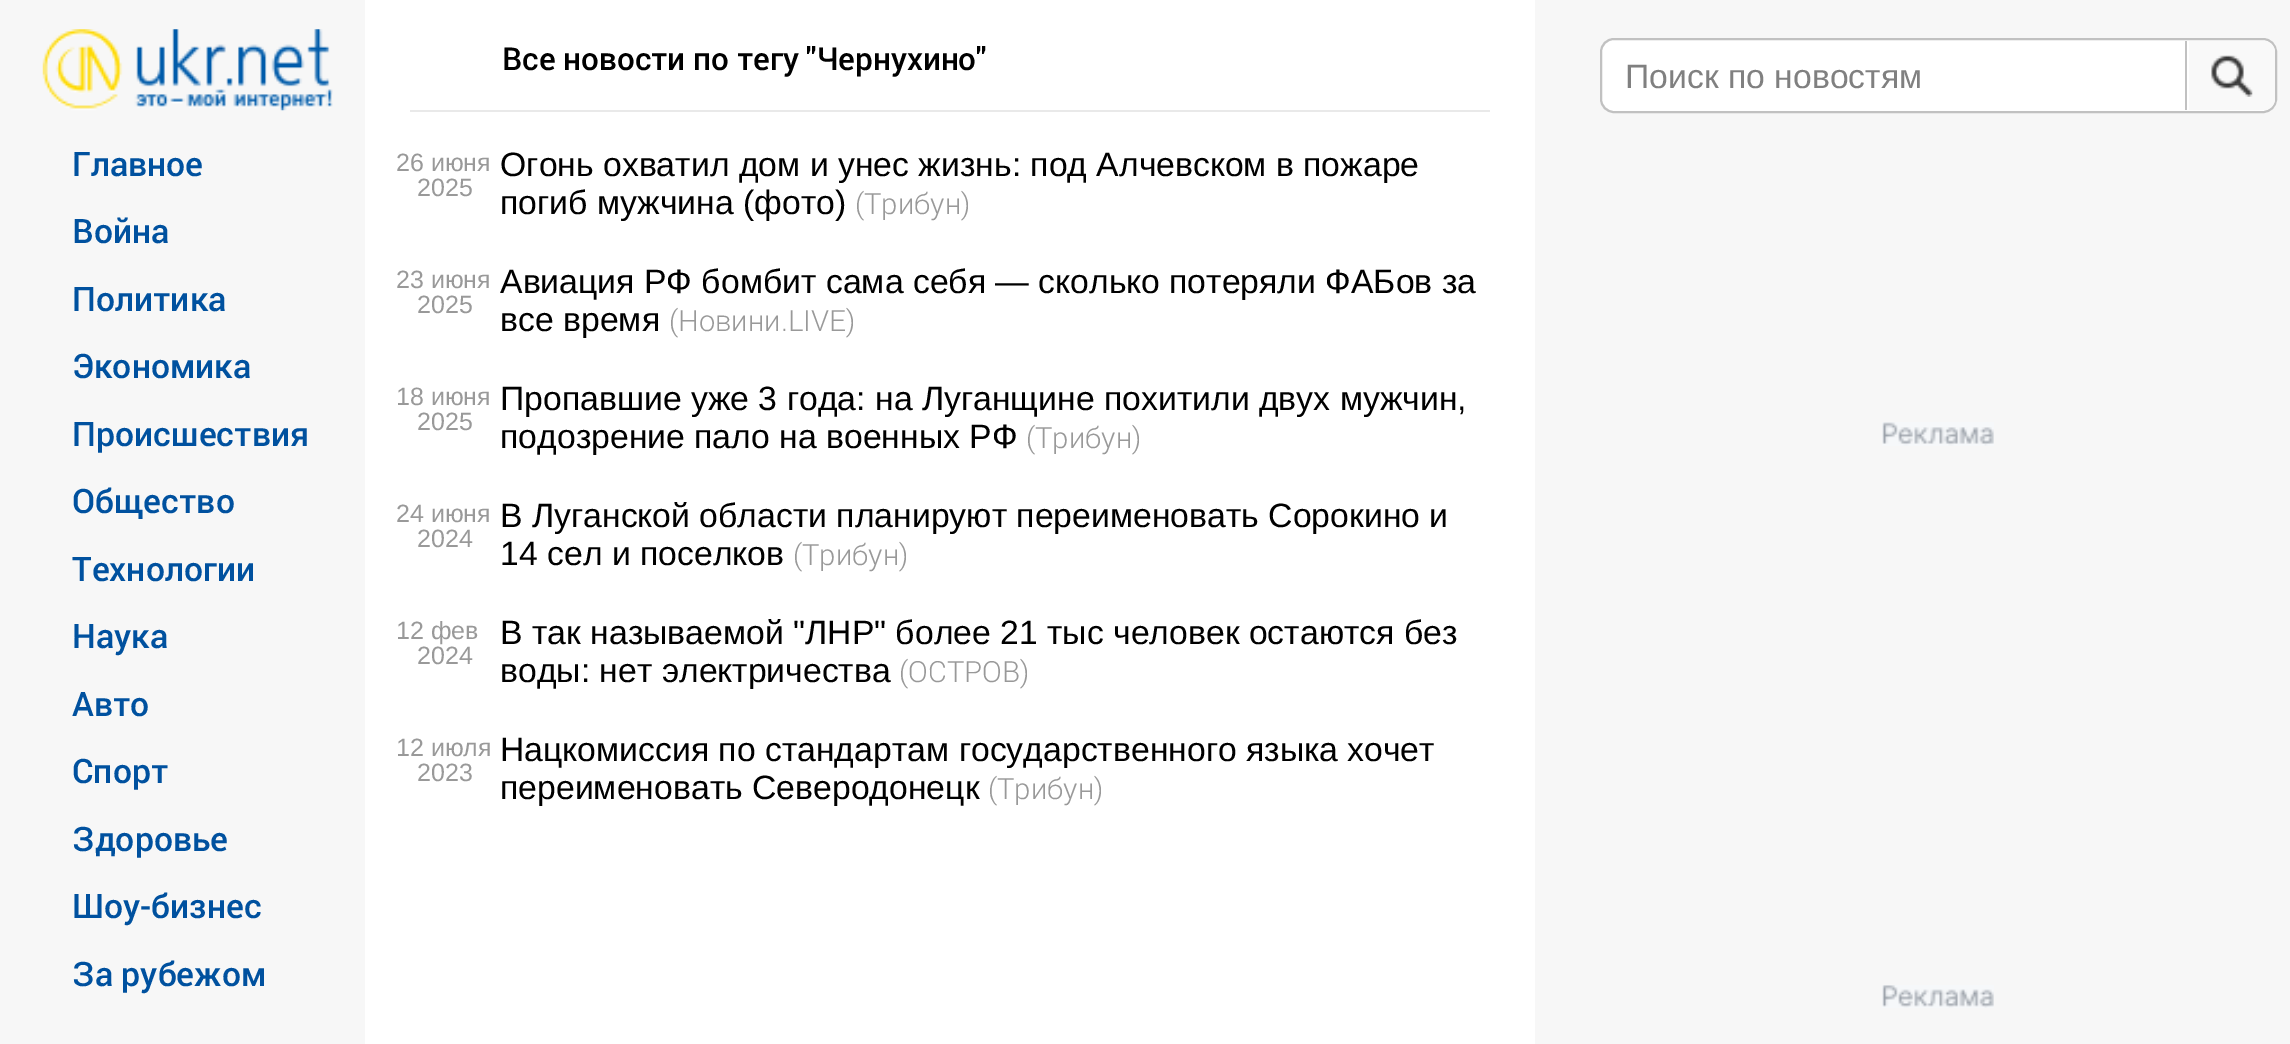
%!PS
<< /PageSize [2290 1044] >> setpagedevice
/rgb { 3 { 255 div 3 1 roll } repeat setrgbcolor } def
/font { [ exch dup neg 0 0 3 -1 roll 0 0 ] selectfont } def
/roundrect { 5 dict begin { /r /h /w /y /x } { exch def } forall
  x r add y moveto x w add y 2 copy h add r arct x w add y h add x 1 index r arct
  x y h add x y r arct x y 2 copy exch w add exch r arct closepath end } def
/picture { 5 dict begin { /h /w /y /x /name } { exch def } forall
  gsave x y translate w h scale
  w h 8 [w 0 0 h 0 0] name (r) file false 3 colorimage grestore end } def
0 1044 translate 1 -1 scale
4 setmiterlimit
247 247 247 rgb
0 0 2290 1044 rectfill
255 255 255 rgb
365 0 1170 1044 rectfill
233 233 233 rgb
410 110 1080 2 rectfill
255 255 255 rgb
1601 39 675 73 13 roundrect gsave fill grestore
193 193 193 rgb
2 setlinewidth
stroke
2185 41 2 69 rectfill
249 249 249 rgb
2189 41 moveto 2264 41 lineto 2270 41 2275 46 2275 52 curveto 2275 99 lineto 2275 105 2270 110 2264 110 curveto 2189 110 lineto closepath fill
(img/1.rgb) 2211 55 42 42 picture
(img/2.rgb) 1882 422 112 24 picture
(img/3.rgb) 1882 985 112 23 picture
(img/4.rgb) 42 29 291 82 picture
/Roboto-Medium 31.5 font
0 0 0 rgb
502 70 moveto (Все новости по тегу "Чернухино") show
/LiberationSans-Regular 25 font
153 153 153 rgb
396 171 moveto (26 июня) show
417 196 moveto (2025) show
/LiberationSans-Regular 33.75 font
0 0 0 rgb
500 176 moveto (Огонь охватил дом и унес жизнь: под Алчевском в пожаре) show
500 214 moveto (погиб мужчина \(фото\)) show
/Roboto-Light 29.25 font
153 153 153 rgb
855 214 moveto (\(Трибун\)) show
/LiberationSans-Regular 25 font
396 288 moveto (23 июня) show
417 313 moveto (2025) show
/LiberationSans-Regular 33.75 font
0 0 0 rgb
500 293 moveto (Авиация РФ бомбит сама себя — сколько потеряли ФАБов за) show
500 331 moveto (все время) show
/Roboto-Light 29.25 font
153 153 153 rgb
669 331 moveto (\(Новини.LIVE\)) show
/LiberationSans-Regular 25 font
396 405 moveto (18 июня) show
417 430 moveto (2025) show
/LiberationSans-Regular 33.75 font
0 0 0 rgb
500 410 moveto (Пропавшие уже 3 года: на Луганщине похитили двух мужчин,) show
500 448 moveto (подозрение пало на военных РФ) show
/Roboto-Light 29.25 font
153 153 153 rgb
1026 448 moveto (\(Трибун\)) show
/LiberationSans-Regular 25 font
396 522 moveto (24 июня) show
417 547 moveto (2024) show
/LiberationSans-Regular 33.75 font
0 0 0 rgb
500 527 moveto (В Луганской области планируют переименовать Сорокино и) show
500 565 moveto (14 сел и поселков) show
/Roboto-Light 29.25 font
153 153 153 rgb
793 565 moveto (\(Трибун\)) show
/LiberationSans-Regular 25 font
396 639 moveto (12 фев) show
417 664 moveto (2024) show
/LiberationSans-Regular 33.75 font
0 0 0 rgb
500 644 moveto (В так называемой "ЛНР" более 21 тыс человек остаются без) show
500 682 moveto (воды: нет электричества) show
/Roboto-Light 29.25 font
153 153 153 rgb
899 682 moveto (\(ОСТРОВ\)) show
/LiberationSans-Regular 25 font
396 756 moveto (12 июля) show
417 781 moveto (2023) show
/LiberationSans-Regular 33.75 font
0 0 0 rgb
500 761 moveto (Нацкомиссия по стандартам государственного языка хочет) show
500 799 moveto (переименовать Северодонецк) show
/Roboto-Light 29.25 font
153 153 153 rgb
988 799 moveto (\(Трибун\)) show
/LiberationSans-Regular 33.75 font
128 128 128 rgb
1625 88 moveto (Поиск по новостям) show
/Roboto-Medium 33.75 font
0 81 159 rgb
[
  [(Главное) 72 176]
  [(Война) 72 243]
  [(Политика) 72 311]
  [(Экономика) 72 378]
  [(Происшествия) 72 446]
  [(Общество) 72 513]
  [(Технологии) 72 581]
  [(Наука) 72 648]
  [(Авто) 72 716]
  [(Спорт) 72 783]
  [(Здоровье) 72 851]
  [(Шоу-бизнес) 72 918]
  [(За рубежом) 72 986]
] { aload pop moveto show } forall
showpage
